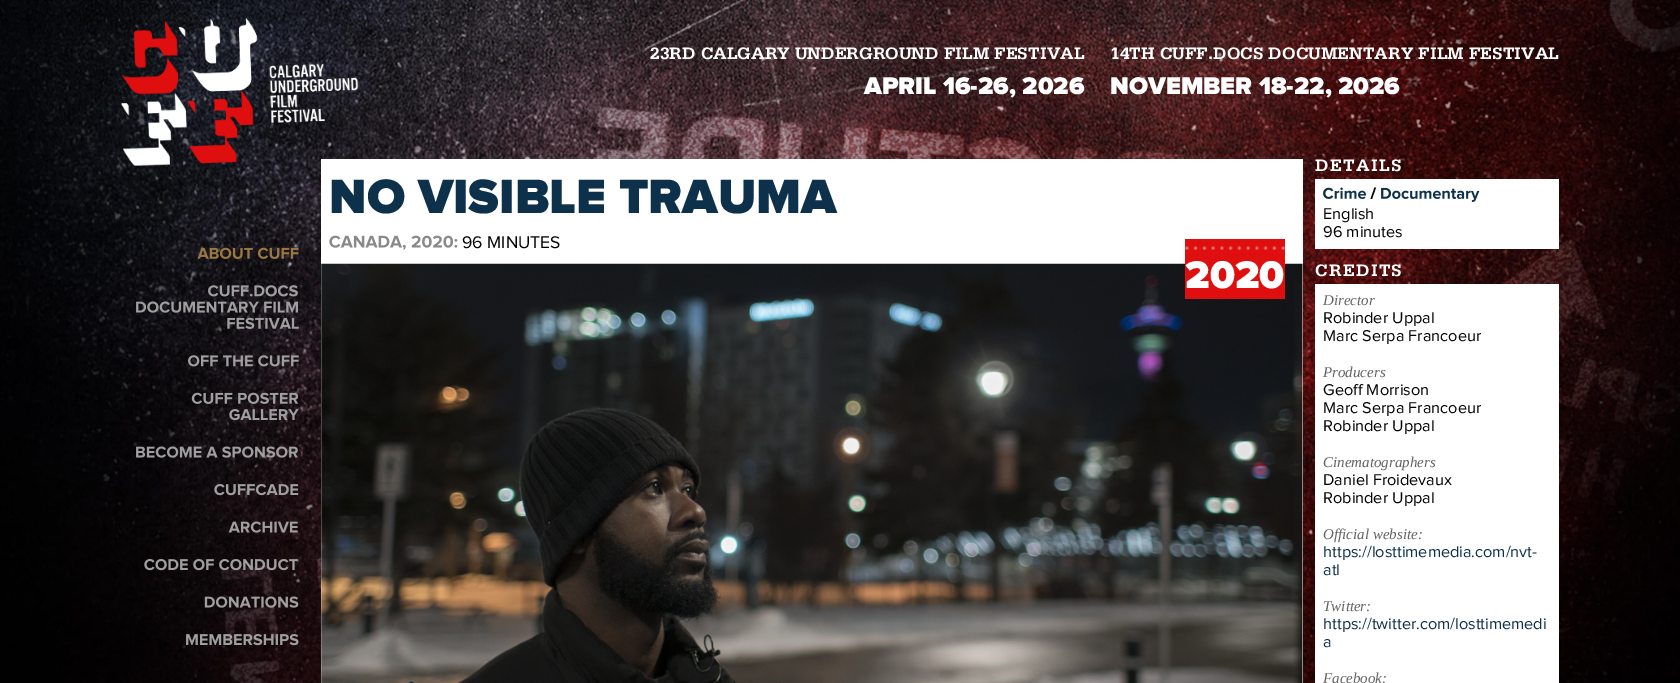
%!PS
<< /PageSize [1680 683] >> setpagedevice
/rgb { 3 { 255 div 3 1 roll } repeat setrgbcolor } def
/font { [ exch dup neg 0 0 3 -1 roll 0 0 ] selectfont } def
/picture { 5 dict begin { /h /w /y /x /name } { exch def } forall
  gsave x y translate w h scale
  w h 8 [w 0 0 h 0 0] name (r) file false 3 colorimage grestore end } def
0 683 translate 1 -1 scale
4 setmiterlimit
255 255 255 rgb
0 0 1680 683 rectfill
(img/1.rgb) 0 0 1680 683 picture
321 159 982 524 rectfill
(img/2.rgb) 121 18 238 148 picture
(img/3.rgb) 197 247 102 12 picture
(img/4.rgb) 208 285 90 12 picture
(img/5.rgb) 136 301 162 12 picture
(img/6.rgb) 227 317 72 12 picture
(img/7.rgb) 188 355 111 12 picture
(img/8.rgb) 191 392 108 12 picture
(img/9.rgb) 229 409 70 12 picture
(img/10.rgb) 136 446 162 12 picture
(img/11.rgb) 214 484 85 12 picture
(img/12.rgb) 228 521 70 12 picture
(img/13.rgb) 144 559 154 12 picture
(img/14.rgb) 204 596 95 12 picture
(img/15.rgb) 186 634 113 12 picture
(img/16.rgb) 329 235 129 15 picture
(img/18.rgb) 321 263 982 420 picture
223 14 15 rgb
1185 239 100 60 rectfill
(img/17.rgb) 1185 246 100 4 picture
(img/19.rgb) 408 681 6 2 picture
255 255 255 rgb
1315 179 244 70 rectfill
(img/20.rgb) 1323 187 43 12 picture
0 0 0 rgb
1372 199 moveto 1370.5 199 lineto 1374.5 187.5 lineto 1376 187.5 lineto closepath fill
(img/21.rgb) 1381 187 99 15 picture
255 255 255 rgb
1315 284 244 399 rectfill
/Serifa-Bold 17.5 font
650 59 moveto (23RD CALGARY UNDERGROUND FILM FESTIVAL) show
/ProximaNova-Black 25 font
864 94 moveto (APRIL 16-26, 2026) show
/Serifa-Bold 17.5 font
1110 59 moveto (14TH CUFF.DOCS DOCUMENTARY FILM FESTIVAL) show
/ProximaNova-Black 25 font
1110 94 moveto (NOVEMBER 18-22, 2026) show
/ProximaNova-Black 50 font
14 49 75 rgb
329 213 moveto (NO VISIBLE TRAUMA) show
/ProximaNova-Regular 17.5 font
0 0 0 rgb
462 248 moveto (96 MINUTES) show
/ProximaNova-Black 40 font
255 255 255 rgb
1185 288 moveto (2020) show
/Serifa-Bold 17.5 font
1315 171 moveto 1.25 0 (DETAILS) ashow
/ProximaNova-Regular 16.25 font
0 0 0 rgb
1323 219 moveto (English) show
1323 237 moveto (96 minutes) show
/Serifa-Bold 17.5 font
255 255 255 rgb
1315 276 moveto 1.25 0 (CREDITS) ashow
/LiberationSerif-Italic 15 font
99 99 99 rgb
1323 305 moveto (Director) show
/ProximaNova-Regular 16.25 font
0 0 0 rgb
1323 323 moveto (Robinder Uppal) show
1323 341 moveto (Marc Serpa Francoeur) show
/LiberationSerif-Italic 15 font
99 99 99 rgb
1323 377 moveto (Producers) show
/ProximaNova-Regular 16.25 font
0 0 0 rgb
[
  [(Geoff Morrison) 1323 395]
  [(Marc Serpa Francoeur) 1323 413]
  [(Robinder Uppal) 1323 431]
] { aload pop moveto show } forall
/LiberationSerif-Italic 15 font
99 99 99 rgb
1323 467 moveto (Cinematographers) show
/ProximaNova-Regular 16.25 font
0 0 0 rgb
1323 485 moveto (Daniel Froidevaux) show
1323 503 moveto (Robinder Uppal) show
/LiberationSerif-Italic 15 font
99 99 99 rgb
1323 539 moveto (Official website:) show
/ProximaNova-Regular 16.25 font
14 49 75 rgb
1323 557 moveto (https://losttimemedia.com/nvt-) show
1323 575 moveto (atl) show
/LiberationSerif-Italic 15 font
99 99 99 rgb
1323 611 moveto (Twitter:) show
/ProximaNova-Regular 16.25 font
14 49 75 rgb
1323 629 moveto (https://twitter.com/losttimemedi) show
1323 647 moveto (a) show
/LiberationSerif-Italic 15 font
99 99 99 rgb
1323 683 moveto (Facebook:) show
showpage
